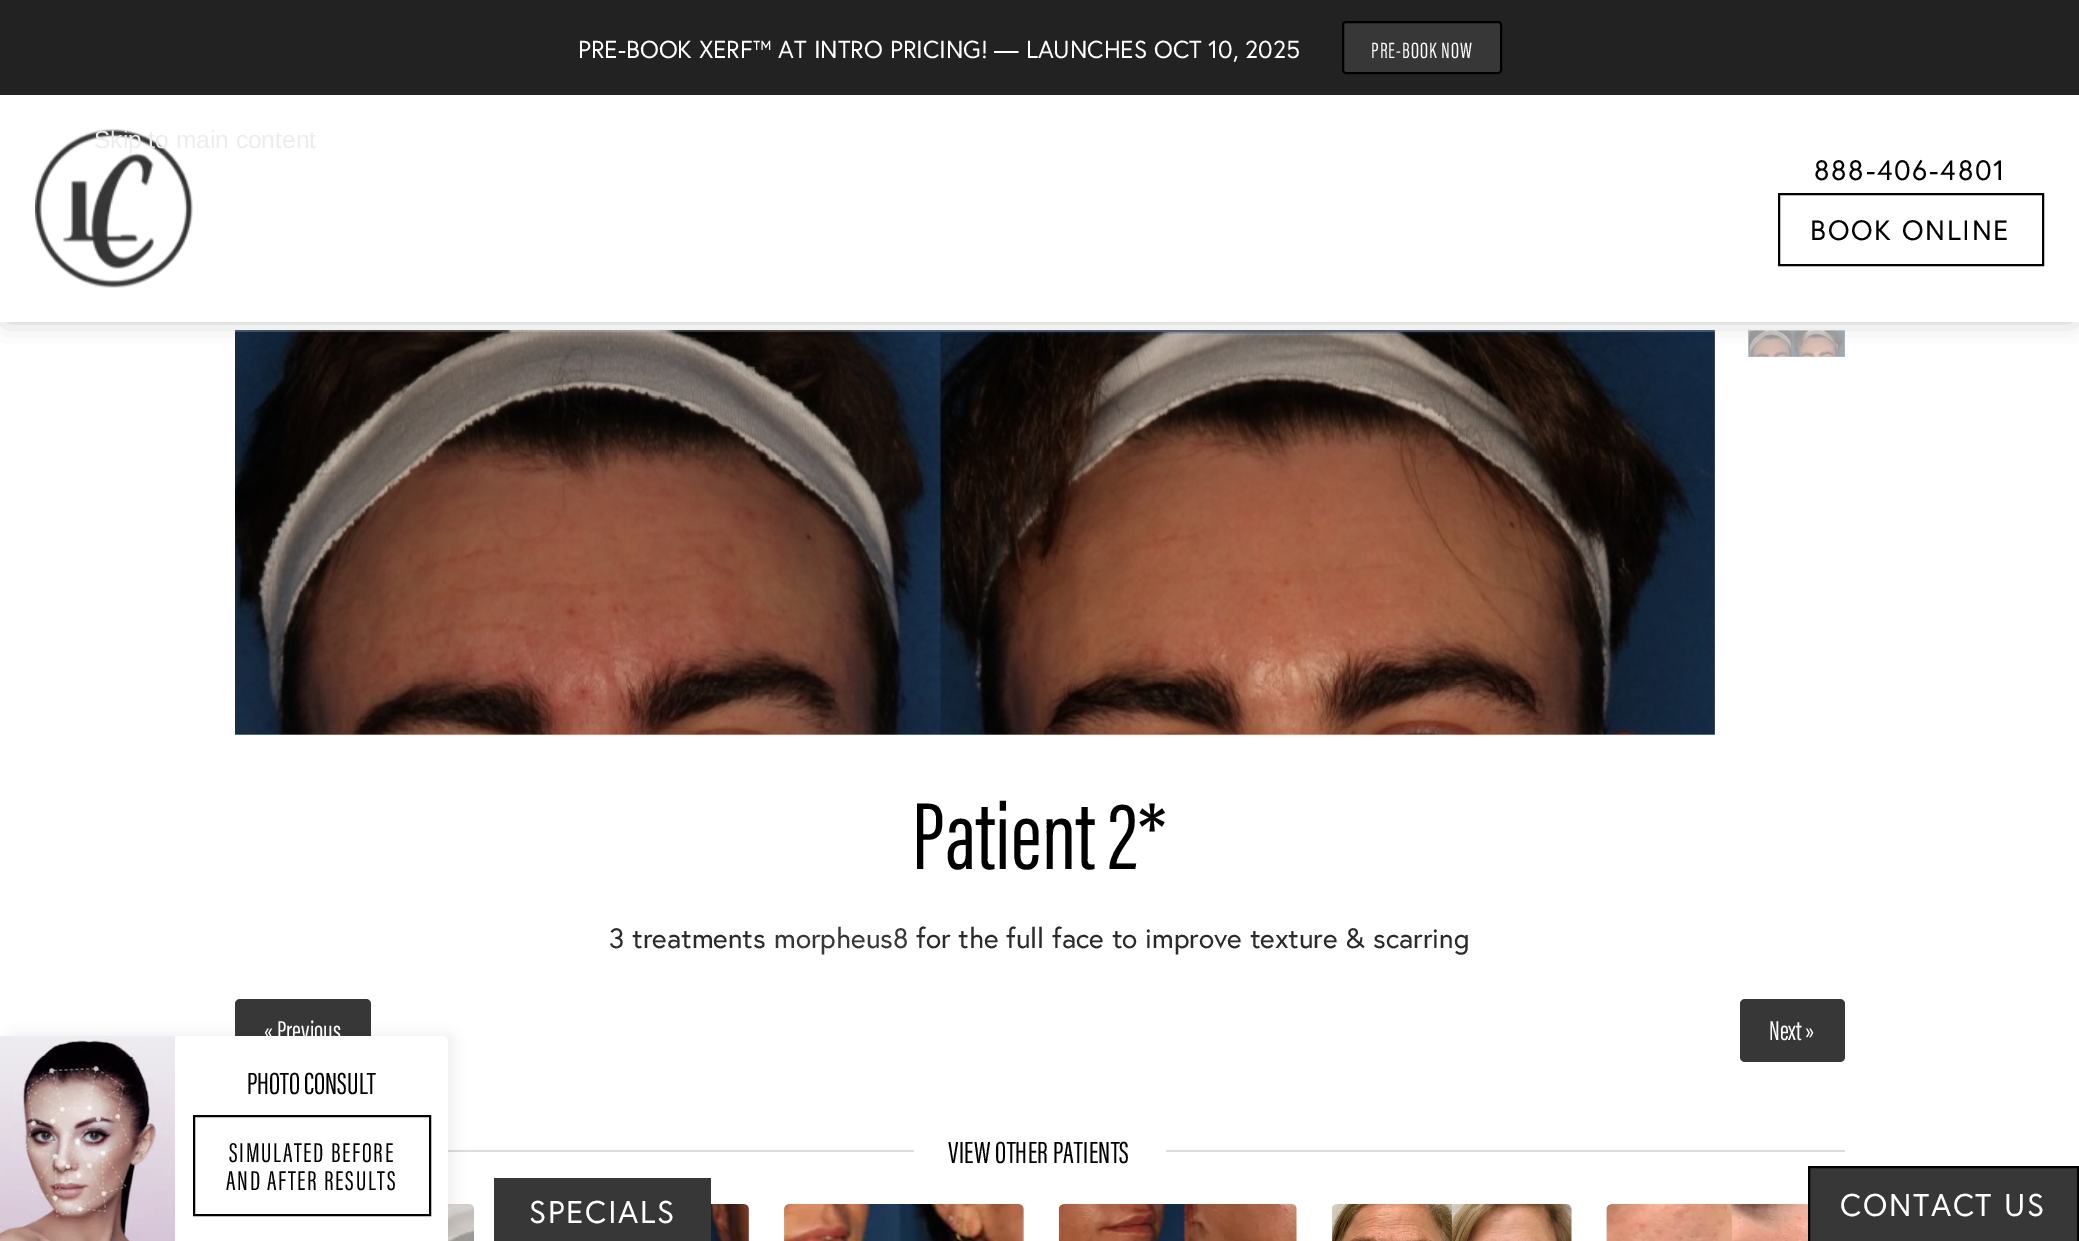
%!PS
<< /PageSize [2079 1241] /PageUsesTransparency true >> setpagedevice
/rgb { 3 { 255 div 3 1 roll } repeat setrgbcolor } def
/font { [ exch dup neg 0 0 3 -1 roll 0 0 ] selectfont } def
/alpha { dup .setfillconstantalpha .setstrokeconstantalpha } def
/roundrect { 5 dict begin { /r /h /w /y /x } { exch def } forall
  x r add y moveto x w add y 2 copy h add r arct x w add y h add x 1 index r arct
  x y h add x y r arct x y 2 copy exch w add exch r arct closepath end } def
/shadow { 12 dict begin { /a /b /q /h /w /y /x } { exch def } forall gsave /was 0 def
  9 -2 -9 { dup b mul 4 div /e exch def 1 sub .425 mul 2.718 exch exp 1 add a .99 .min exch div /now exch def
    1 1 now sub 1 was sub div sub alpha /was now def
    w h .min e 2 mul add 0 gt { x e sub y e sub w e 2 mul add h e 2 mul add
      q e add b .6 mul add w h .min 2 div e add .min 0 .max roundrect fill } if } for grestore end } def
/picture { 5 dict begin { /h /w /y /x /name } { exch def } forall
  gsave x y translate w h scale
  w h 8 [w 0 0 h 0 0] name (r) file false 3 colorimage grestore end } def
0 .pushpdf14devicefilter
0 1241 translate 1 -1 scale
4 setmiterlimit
255 255 255 rgb
0 0 2079 1241 rectfill
(img/2.rgb) 235 330 1480 405 picture
(img/3.rgb) 1748 330 97 27 picture
20 20 20 rgb
7 7 2065 308 0 13 0.4 shadow
255 255 255 rgb
0 95 2079 227 rectfill
34 34 34 rgb
0 0 2079 95 rectfill
55 55 55 rgb
1343 22 158 51 3 roundrect gsave fill grestore
0 0 0 rgb
2 setlinewidth
stroke
(img/1.rgb) 35 129 158 159 picture
1779 194 264 71 rectstroke
55 55 55 rgb
235 999 136 63 5 roundrect fill
1740 999 105 63 5 roundrect fill
221 221 221 rgb
448 1150 466 2 rectfill
1166 1150 679 2 rectfill
249 249 249 rgb
236 1204 238 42 5 roundrect fill
(img/4.rgb) 448 1204 26 37 picture
239 239 239 rgb
509 1204 240 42 5 roundrect fill
(img/5.rgb) 711 1204 38 37 picture
784 1204 240 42 5 roundrect fill
(img/6.rgb) 784 1204 240 37 picture
1059 1204 238 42 5 roundrect fill
(img/7.rgb) 1058 1204 239 37 picture
1332 1204 240 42 5 roundrect fill
(img/8.rgb) 1332 1204 240 37 picture
(img/9.rgb) 1606 1204 202 37 picture
0 0 0 rgb
7 1033 448 206 7 7 0.05 shadow
255 255 255 rgb
0 1036 moveto 441 1036 lineto 445 1036 448 1039 448 1043 curveto 448 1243 lineto 0 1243 lineto closepath fill
(img/10.rgb) 0 1036 175 205 picture
0 0 0 rgb
194 1116 236 99 rectstroke
55 55 55 rgb
494 1178 217 63 rectfill
1809 1167 moveto 2078 1167 lineto 2078 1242 lineto 1809 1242 lineto closepath gsave fill grestore
0 0 0 rgb
stroke
/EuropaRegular-Regular 24.5 font
255 255 255 rgb
578 58 moveto (PRE-BOOK XERF™ AT INTRO PRICING! — LAUNCHES OCT 10, 2025) show
/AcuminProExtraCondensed-Regular 22.75 font
1371 58 moveto 1 0 (PRE-BOOK NOW) ashow
/LiberationSans-Regular 24.5 font
236 236 236 rgb
94 148 moveto (Skip to main content) show
/EuropaRegular-Regular 28 font
0 0 0 rgb
1814 180 moveto 1.75 0 (888-406-4801) ashow
1810 240 moveto 1.75 0 (BOOK ONLINE) ashow
/AcuminProExtraCondensed-Regular 98 font
912 869 moveto (Patient 2*) show
/EuropaRegular-Regular 28 font
42 42 42 rgb
609 948 moveto (3 treatments) show
55 55 55 rgb
774 948 moveto (morpheus8) show
42 42 42 rgb
916 948 moveto (for the full face to improve texture & scarring) show
/AcuminProExtraCondensed-Regular 28 font
255 255 255 rgb
264 1040 moveto (« Previous) show
1769 1040 moveto (Next ») show
/AcuminProExtraCondensed-Regular 31.5 font
0 0 0 rgb
948 1163 moveto 0.3 0 (VIEW OTHER PATIENTS) ashow
247 1094 moveto (PHOTO CONSULT) show
/AcuminProExtraCondensed-Regular 28 font
229 1162 moveto 1.75 0 (SIMULATED BEFORE) ashow
226 1190 moveto 1.75 0 (AND AFTER RESULTS) ashow
/EuropaRegular-Regular 31.5 font
255 255 255 rgb
529 1223 moveto 1.75 0 (SPECIALS) ashow
1840 1216 moveto 1.75 0 (CONTACT US) ashow
.poppdf14devicefilter showpage
